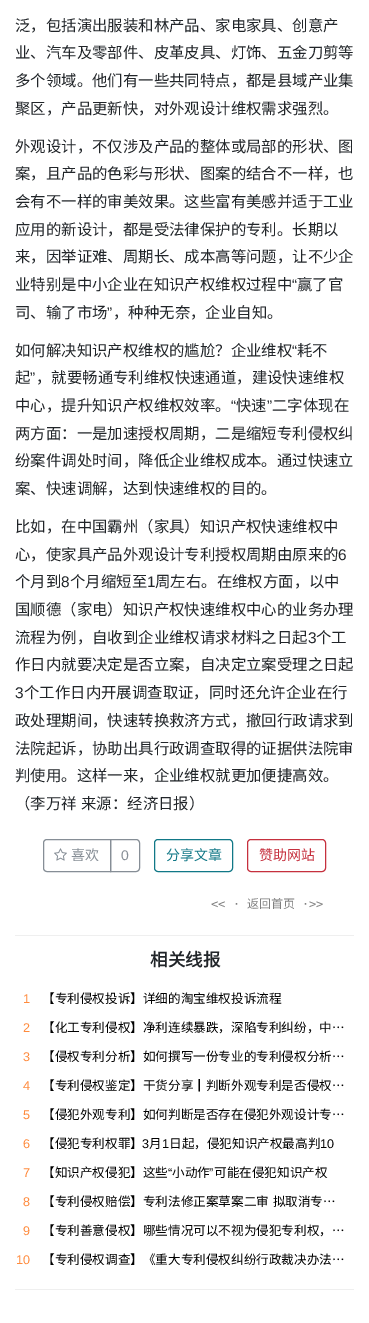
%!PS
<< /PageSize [369 1323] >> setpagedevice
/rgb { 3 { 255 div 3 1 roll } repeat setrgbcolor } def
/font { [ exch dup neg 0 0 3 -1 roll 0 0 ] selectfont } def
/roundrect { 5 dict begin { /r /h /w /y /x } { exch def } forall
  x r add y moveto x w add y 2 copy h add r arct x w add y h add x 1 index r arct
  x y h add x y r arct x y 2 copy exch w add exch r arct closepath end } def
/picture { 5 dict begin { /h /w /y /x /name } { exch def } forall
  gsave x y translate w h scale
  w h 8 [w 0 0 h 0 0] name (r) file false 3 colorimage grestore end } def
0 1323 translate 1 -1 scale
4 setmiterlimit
255 255 255 rgb
0 0 369 1323 rectfill
134 142 150 rgb
47 839.5 moveto 110.5 839.5 lineto 110.5 871.5 lineto 47 871.5 lineto 45 871.5 43.5 870 43.5 868 curveto 43.5 843 lineto 43.5 841 45 839.5 47 839.5 curveto closepath stroke
(img/1.rgb) 54 848 13 13 picture
110.5 839.5 moveto 136 839.5 lineto 138 839.5 139.5 841 139.5 843 curveto 139.5 868 lineto 139.5 870 138 871.5 136 871.5 curveto 110.5 871.5 lineto closepath stroke
17 120 135 rgb
154.5 839.5 78 32 3.5 roundrect stroke
198 48 62 rgb
247.5 839.5 78 32 3.5 roundrect stroke
239 239 239 rgb
15 935 339 1 rectfill
15 1289 339 1 rectfill
/NotoSansCJKSC-Regular 15.4 font
33 37 41 rgb
[
  [(泛，包括演出服装和林产品、家电家具、创意产) 15 31]
  [(业、汽车及零部件、皮革皮具、灯饰、五金刀剪等) 15 58]
  [(多个领域。他们有一些共同特点，都是县域产业集) 15 86]
  [(聚区，产品更新快，对外观设计维权需求强烈。) 15 114]
  [(外观设计，不仅涉及产品的整体或局部的形状、图) 15 152]
  [(案，且产品的色彩与形状、图案的结合不一样，也) 15 179]
  [(会有不一样的审美效果。这些富有美感并适于工业) 15 207]
  [(应用的新设计，都是受法律保护的专利。长期以) 15 235]
  [(来，因举证难、周期长、成本高等问题，让不少企) 15 262]
  [(业特别是中小企业在知识产权维权过程中) 15 290]
] { aload pop moveto show } forall
/LiberationSans-Regular 15.4 font
292 290 moveto (“) show
/NotoSansCJKSC-Regular 15.4 font
297 290 moveto (赢了官) show
15 318 moveto (司、输了市场) show
/LiberationSans-Regular 15.4 font
107 318 moveto (”) show
/NotoSansCJKSC-Regular 15.4 font
113 318 moveto (，种种无奈，企业自知。) show
15 356 moveto (如何解决知识产权维权的尴尬？企业维权) show
/LiberationSans-Regular 15.4 font
292 356 moveto (“) show
/NotoSansCJKSC-Regular 15.4 font
297 356 moveto (耗不) show
15 383 moveto (起) show
/LiberationSans-Regular 15.4 font
30 383 moveto (”) show
/NotoSansCJKSC-Regular 15.4 font
36 383 moveto (，就要畅通专利维权快速通道，建设快速维权) show
15 411 moveto (中心，提升知识产权维权效率。) show
/LiberationSans-Regular 15.4 font
231 411 moveto (“) show
/NotoSansCJKSC-Regular 15.4 font
236 411 moveto (快速) show
/LiberationSans-Regular 15.4 font
267 411 moveto (”) show
/NotoSansCJKSC-Regular 15.4 font
[
  [(二字体现在) 272 411]
  [(两方面：一是加速授权周期，二是缩短专利侵权纠) 15 439]
  [(纷案件调处时间，降低企业维权成本。通过快速立) 15 466]
  [(案、快速调解，达到快速维权的目的。) 15 494]
  [(比如，在中国霸州（家具）知识产权快速维权中) 15 532]
  [(心，使家具产品外观设计专利授权周期由原来的) 15 560]
] { aload pop moveto show } forall
/LiberationSans-Regular 15.4 font
338 560 moveto (6) show
/NotoSansCJKSC-Regular 15.4 font
15 587 moveto (个月到) show
/LiberationSans-Regular 15.4 font
61 587 moveto (8) show
/NotoSansCJKSC-Regular 15.4 font
70 587 moveto (个月缩短至) show
/LiberationSans-Regular 15.4 font
147 587 moveto (1) show
/NotoSansCJKSC-Regular 15.4 font
[
  [(周左右。在维权方面，以中) 155 587]
  [(国顺德（家电）知识产权快速维权中心的业务办理) 15 615]
  [(流程为例，自收到企业维权请求材料之日起) 15 643]
] { aload pop moveto show } forall
/LiberationSans-Regular 15.4 font
308 643 moveto (3) show
/NotoSansCJKSC-Regular 15.4 font
316 643 moveto (个工) show
15 670 moveto (作日内就要决定是否立案，自决定立案受理之日起) show
/LiberationSans-Regular 15.4 font
15 698 moveto (3) show
/NotoSansCJKSC-Regular 15.4 font
[
  [(个工作日内开展调查取证，同时还允许企业在行) 24 698]
  [(政处理期间，快速转换救济方式，撤回行政请求到) 15 726]
  [(法院起诉，协助出具行政调查取得的证据供法院审) 15 754]
  [(判使用。这样一来，企业维权就更加便捷高效。) 15 781]
] { aload pop moveto show } forall
15 809 moveto 1 0 32 (（李万祥 来源：经济日报）) widthshow
/NotoSansCJKSC-Regular 14 font
134 142 150 rgb
71 860 moveto (喜欢) show
/LiberationSans-Regular 14 font
121 860 moveto (0) show
/NotoSansCJKSC-Regular 14 font
17 120 135 rgb
166 860 moveto (分享文章) show
198 48 62 rgb
259 860 moveto (赞助网站) show
/DejaVuSansMono-Regular 12 font
128 128 128 rgb
211 908 moveto (<< ·) show
/NotoSansCJKSC-Regular 12 font
247 908 moveto (返回首页) show
/DejaVuSansMono-Regular 12 font
302 908 moveto (·>>) show
/NotoSansCJKSC-Bold 17.5 font
33 37 41 rgb
150 966 moveto (相关线报) show
/LiberationSans-Regular 12.6 font
255 139 61 rgb
23 1003 moveto (1) show
/NotoSansCJKSC-Regular 12.6 font
0 0 0 rgb
42 1003 moveto (【专利侵权投诉】详细的淘宝维权投诉流程) show
/LiberationSans-Regular 12.6 font
255 139 61 rgb
23 1032 moveto (2) show
/NotoSansCJKSC-Regular 12.6 font
0 0 0 rgb
42 1032 moveto (【化工专利侵权】净利连续暴跌，深陷专利纠纷，中…) show
/LiberationSans-Regular 12.6 font
255 139 61 rgb
23 1061 moveto (3) show
/NotoSansCJKSC-Regular 12.6 font
0 0 0 rgb
42 1061 moveto (【侵权专利分析】如何撰写一份专业的专利侵权分析…) show
/LiberationSans-Regular 12.6 font
255 139 61 rgb
23 1090 moveto (4) show
/NotoSansCJKSC-Regular 12.6 font
0 0 0 rgb
42 1090 moveto (【专利侵权鉴定】干货分享┃判断外观专利是否侵权…) show
/LiberationSans-Regular 12.6 font
255 139 61 rgb
23 1119 moveto (5) show
/NotoSansCJKSC-Regular 12.6 font
0 0 0 rgb
42 1119 moveto (【侵犯外观专利】如何判断是否存在侵犯外观设计专…) show
/LiberationSans-Regular 12.6 font
255 139 61 rgb
23 1148 moveto (6) show
/NotoSansCJKSC-Regular 12.6 font
0 0 0 rgb
42 1148 moveto (【侵犯专利权罪】) show
/LiberationSans-Regular 12.6 font
142 1148 moveto (3) show
/NotoSansCJKSC-Regular 12.6 font
149 1148 moveto (月) show
/LiberationSans-Regular 12.6 font
162 1148 moveto (1) show
/NotoSansCJKSC-Regular 12.6 font
169 1148 moveto (日起，侵犯知识产权最高判) show
/LiberationSans-Regular 12.6 font
320 1148 moveto (10) show
255 139 61 rgb
23 1177 moveto (7) show
/NotoSansCJKSC-Regular 12.6 font
0 0 0 rgb
42 1177 moveto (【知识产权侵犯】这些) show
/LiberationSans-Regular 12.6 font
168 1177 moveto (“) show
/NotoSansCJKSC-Regular 12.6 font
172 1177 moveto (小动作) show
/LiberationSans-Regular 12.6 font
209 1177 moveto (”) show
/NotoSansCJKSC-Regular 12.6 font
214 1177 moveto (可能在侵犯知识产权) show
/LiberationSans-Regular 12.6 font
255 139 61 rgb
23 1206 moveto (8) show
/NotoSansCJKSC-Regular 12.6 font
0 0 0 rgb
42 1206 moveto 1 0 32 (【专利侵权赔偿】专利法修正案草案二审 拟取消专…) widthshow
/LiberationSans-Regular 12.6 font
255 139 61 rgb
23 1235 moveto (9) show
/NotoSansCJKSC-Regular 12.6 font
0 0 0 rgb
42 1235 moveto (【专利善意侵权】哪些情况可以不视为侵犯专利权，…) show
/LiberationSans-Regular 12.6 font
255 139 61 rgb
16 1264 moveto (10) show
/NotoSansCJKSC-Regular 12.6 font
0 0 0 rgb
42 1264 moveto (【专利侵权调查】《重大专利侵权纠纷行政裁决办法…) show
showpage
